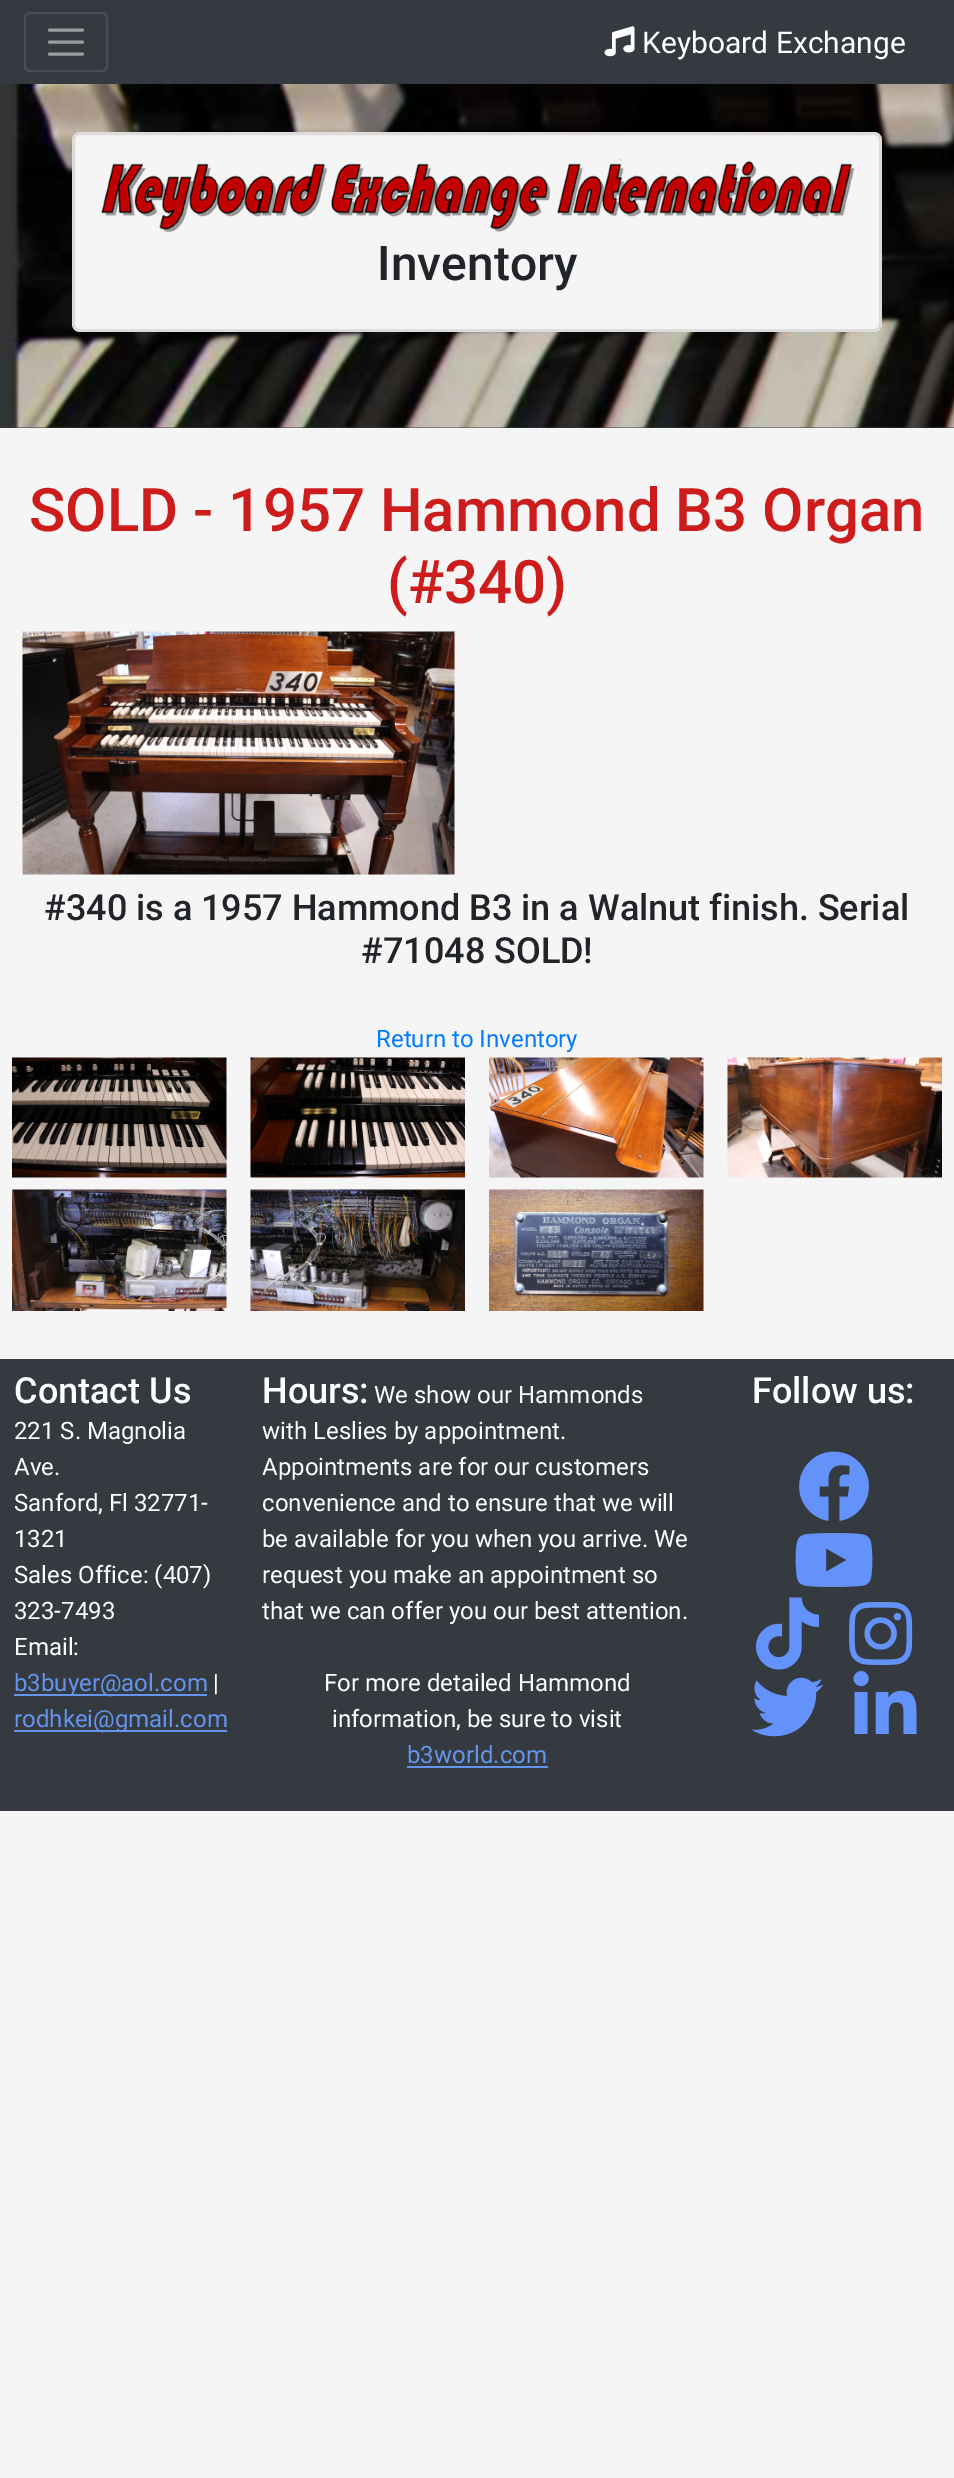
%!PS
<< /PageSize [954 2478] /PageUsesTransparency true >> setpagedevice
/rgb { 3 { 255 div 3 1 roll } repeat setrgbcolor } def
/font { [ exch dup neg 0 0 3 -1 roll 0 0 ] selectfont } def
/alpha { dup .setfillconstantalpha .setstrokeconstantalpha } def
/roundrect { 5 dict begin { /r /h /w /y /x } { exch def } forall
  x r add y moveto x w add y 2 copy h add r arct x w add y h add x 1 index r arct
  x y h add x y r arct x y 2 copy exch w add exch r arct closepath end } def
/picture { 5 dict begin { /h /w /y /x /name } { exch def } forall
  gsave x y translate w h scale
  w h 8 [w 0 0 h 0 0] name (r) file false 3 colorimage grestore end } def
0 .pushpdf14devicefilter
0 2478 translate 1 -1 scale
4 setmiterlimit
245 245 245 rgb
0 0 954 2478 rectfill
52 58 64 rgb
0 0 954 428 rectfill
72 78 83 rgb
2 setlinewidth
25 13 82 58 5 roundrect stroke
154 157 160 rgb
3 setlinewidth
1 setlinecap
49.5 30 moveto 82.5 30 lineto 49.5 42 moveto 82.5 42 lineto 49.5 54 moveto 82.5 54 lineto stroke
(img/1.rgb) 604 26 31 31 picture
(img/2.rgb) 0 84 954 344 picture
245 245 245 rgb
72 132 810 200 8 roundrect fill
0.1 alpha
0 0 0 rgb
0 setlinecap
73.5 133.5 807 197 6.5 roundrect stroke
1 alpha
(img/3.rgb) 101 159 754 74 picture
(img/4.rgb) 22 631 433 244 picture
(img/5.rgb) 12 1057 215 121 picture
(img/6.rgb) 250 1057 215 121 picture
(img/7.rgb) 489 1057 215 121 picture
(img/8.rgb) 727 1057 215 121 picture
(img/9.rgb) 12 1189 215 122 picture
(img/10.rgb) 250 1189 215 122 picture
(img/11.rgb) 489 1189 215 122 picture
[
  [0 1359 954 452 52 58 64]
  [14 1694 193 2 100 149 237]
  [14 1730 213 2 100 149 237]
  [407 1766 141 2 100 149 237]
] { aload pop rgb rectfill } forall
(img/12.rgb) 799 1451 70 70 picture
(img/13.rgb) 795 1533 78 54 picture
(img/14.rgb) 756 1597 63 73 picture
(img/15.rgb) 849 1602 64 63 picture
(img/16.rgb) 751 1677 73 60 picture
(img/17.rgb) 853 1671 64 63 picture
/Roboto-Regular 30 font
255 255 255 rgb
642 53 moveto (Keyboard Exchange) show
/Roboto-Medium 48 font
33 37 41 rgb
377 280 moveto (Inventory) show
/Roboto-Medium 60 font
204 28 28 rgb
29 531 moveto (SOLD - 1957 Hammond B3 Organ) show
387 603 moveto (\(#340\)) show
/Roboto-Medium 36 font
33 37 41 rgb
44 920 moveto (#340 is a 1957 Hammond B3 in a Walnut finish. Serial) show
361 963 moveto (#71048 SOLD!) show
/Roboto-Regular 24 font
0 123 255 rgb
376 1047 moveto (Return to Inventory) show
/Roboto-Medium 36 font
255 255 255 rgb
14 1403 moveto (Contact Us) show
/Roboto-Regular 24 font
[
  [(221 S. Magnolia) 14 1439]
  [(Ave.) 14 1475]
  [(Sanford, Fl 32771-) 14 1511]
  [(1321) 14 1547]
  [(Sales Office: \(407\)) 14 1583]
  [(323-7493) 14 1619]
  [(Email:) 14 1655]
] { aload pop moveto show } forall
100 149 237 rgb
14 1691 moveto (b3buyer@aol.com) show
255 255 255 rgb
213 1691 moveto (|) show
100 149 237 rgb
14 1727 moveto (rodhkei@gmail.com) show
/Roboto-Medium 36 font
255 255 255 rgb
262 1403 moveto (Hours:) show
/Roboto-Regular 24 font
[
  [(We show our Hammonds) 374 1403]
  [(with Leslies by appointment.) 262 1439]
  [(Appointments are for our customers) 262 1475]
  [(convenience and to ensure that we will) 262 1511]
  [(be available for you when you arrive. We) 262 1547]
  [(request you make an appointment so) 262 1583]
  [(that we can offer you our best attention.) 262 1619]
  [(For more detailed Hammond) 324 1691]
  [(information, be sure to visit) 332 1727]
] { aload pop moveto show } forall
100 149 237 rgb
407 1763 moveto (b3world.com) show
/Roboto-Medium 36 font
255 255 255 rgb
752 1403 moveto (Follow us:) show
.poppdf14devicefilter showpage
